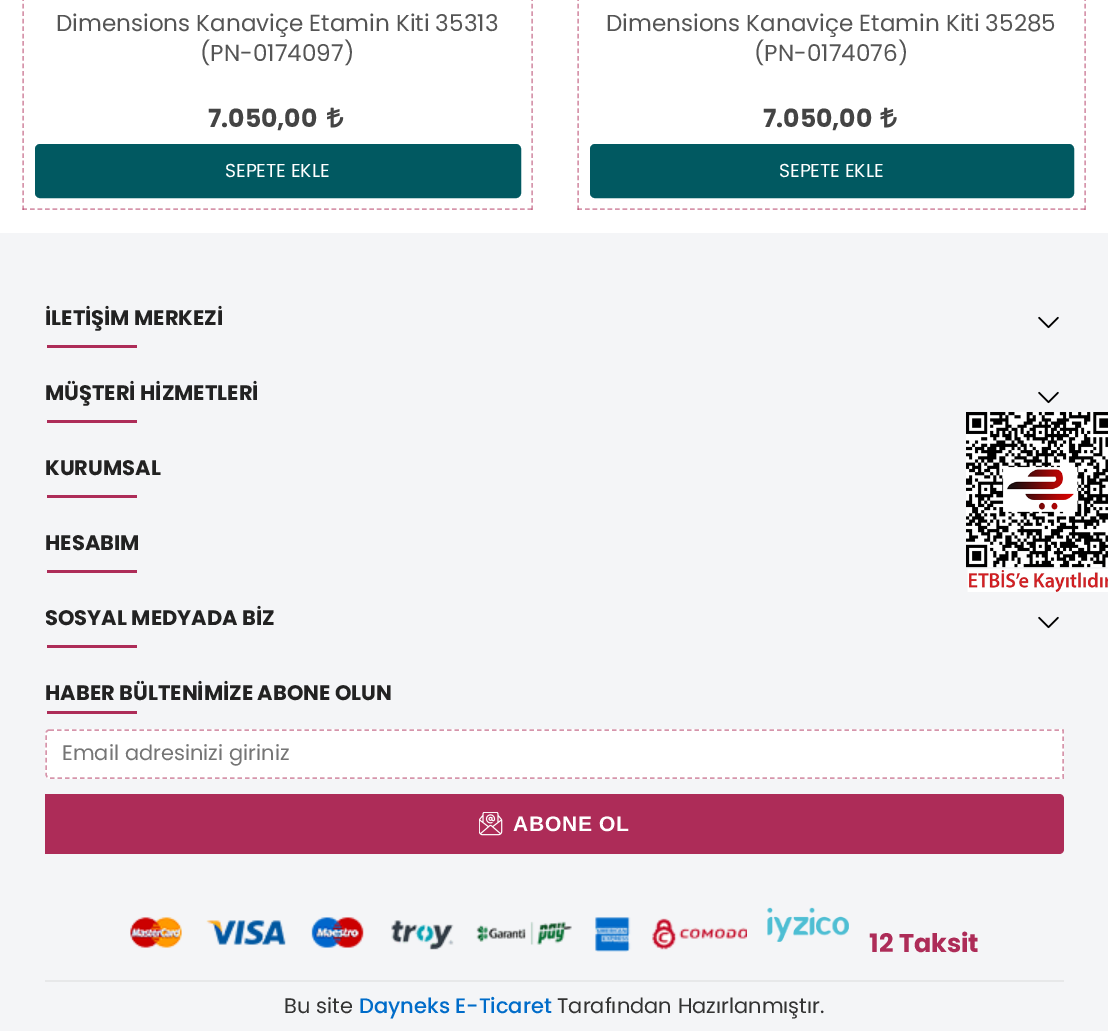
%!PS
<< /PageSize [1108 1031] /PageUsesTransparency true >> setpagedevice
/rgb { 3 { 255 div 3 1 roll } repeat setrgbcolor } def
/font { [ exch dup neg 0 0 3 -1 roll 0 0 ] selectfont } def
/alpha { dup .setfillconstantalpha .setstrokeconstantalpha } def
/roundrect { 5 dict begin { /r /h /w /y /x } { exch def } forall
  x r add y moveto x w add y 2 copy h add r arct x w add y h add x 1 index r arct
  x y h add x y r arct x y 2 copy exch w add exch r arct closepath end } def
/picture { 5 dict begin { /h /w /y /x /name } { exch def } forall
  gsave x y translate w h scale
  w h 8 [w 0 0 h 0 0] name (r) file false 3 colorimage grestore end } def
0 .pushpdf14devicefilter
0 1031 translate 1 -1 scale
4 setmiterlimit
255 255 255 rgb
0 0 1108 1031 rectfill
214 150 172 rgb
1.5 setlinewidth
[4.5 2.97] 0 setdash
532 -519 moveto 532 210 lineto stroke
0.5 alpha
173 44 88 rgb
[4.5 3.04] 0 setdash
22.5 209 moveto 532.5 209 lineto stroke
[4.5 2.97] 0 setdash
23 -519 moveto 23 210 lineto stroke
1 alpha
(img/1.rgb) 327 107 17 21 picture
1 89 97 rgb
36 145 484 52 4 roundrect gsave fill grestore
2 setlinewidth
[] 0 setdash
stroke
214 150 172 rgb
1.5 setlinewidth
[4.5 2.97] 0 setdash
1085 -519 moveto 1085 210 lineto stroke
0.5 alpha
173 44 88 rgb
[4.5 3.01] 0 setdash
577.5 209 moveto 1086 209 lineto stroke
[4.5 2.97] 0 setdash
578 -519 moveto 578 210 lineto stroke
1 alpha
(img/2.rgb) 880 107 17 21 picture
1 89 97 rgb
591 145 482 52 4 roundrect gsave fill grestore
2 setlinewidth
[] 0 setdash
stroke
244 245 247 rgb
0 233 1108 798 rectfill
(img/3.rgb) 1038 316 21 13 picture
173 44 88 rgb
47 345 90 3 rectfill
(img/3.rgb) 1038 391 21 13 picture
47 420 90 3 rectfill
47 495 90 3 rectfill
(img/4.rgb) 966 412 142 180 picture
47 570 90 3 rectfill
(img/3.rgb) 1038 616 21 13 picture
47 645 90 3 rectfill
47 711 90 3 rectfill
255 255 255 rgb
50 729 moveto 1064 729 lineto 1064 779 lineto 50 779 lineto 47 779 45 777 45 774 curveto 45 734 lineto 45 731 47 729 50 729 curveto closepath fill
0.5 alpha
173 44 88 rgb
1.5 setlinewidth
[4.5 3] 0 setdash
49.5 730 moveto 1063 730 lineto 1063 778 lineto 49.5 778 lineto 47.5 778 46 776 46 774 curveto 46 733.5 lineto 46 731.5 47.5 730 49.5 730 curveto closepath stroke
1 alpha
45 794 moveto 1059 794 lineto 1062 794 1064 796 1064 799 curveto 1064 849 lineto 1064 852 1062 854 1059 854 curveto 45 854 lineto closepath fill
(img/5.rgb) 479 812 24 24 picture
(img/6.rgb) 130 917 617 35 picture
(img/7.rgb) 767 907 82 35 picture
231 232 233 rgb
45 980 1019 2 rectfill
/Poppins-Regular 23.1 font
85 85 85 rgb
56 31 moveto (Dimensions Kanaviçe Etamin Kiti 35313) show
200 61 moveto (\(PN-0174097\)) show
/Poppins-Bold 25 font
68 68 68 rgb
208 127 moveto (7.050,00) show
/Poppins-Regular 18.75 font
255 255 255 rgb
225 177 moveto (SEPETE EKLE) show
/Poppins-Regular 23.1 font
85 85 85 rgb
606 31 moveto (Dimensions Kanaviçe Etamin Kiti 35285) show
754 61 moveto (\(PN-0174076\)) show
/Poppins-Bold 25 font
68 68 68 rgb
763 127 moveto (7.050,00) show
/Poppins-Regular 18.75 font
255 255 255 rgb
779 177 moveto (SEPETE EKLE) show
/Poppins-Bold 21 font
34 34 34 rgb
[
  [(İLETİŞİM MERKEZİ) 45 325]
  [(MÜŞTERİ HİZMETLERİ) 45 400]
  [(KURUMSAL) 45 475]
  [(HESABIM) 45 550]
  [(SOSYAL MEDYADA BİZ) 45 625]
  [(HABER BÜLTENİMİZE ABONE OLUN) 45 700]
] { aload pop moveto show } forall
/Poppins-Regular 21 font
117 117 117 rgb
62 760 moveto (Email adresinizi giriniz) show
/LiberationSans-Bold 21 font
255 255 255 rgb
513 831 moveto 0.75 0 (ABONE OL) ashow
/Poppins-Bold 25.5 font
173 44 88 rgb
869 952 moveto (12 Taksit) show
/Poppins-Regular 21 font
51 51 51 rgb
284 1013 moveto (Bu site) show
/Poppins-Medium 21 font
0 108 201 rgb
359 1013 moveto (Dayneks E-Ticaret) show
/Poppins-Regular 21 font
51 51 51 rgb
557 1013 moveto (Tarafından Hazırlanmıştır.) show
.poppdf14devicefilter showpage
